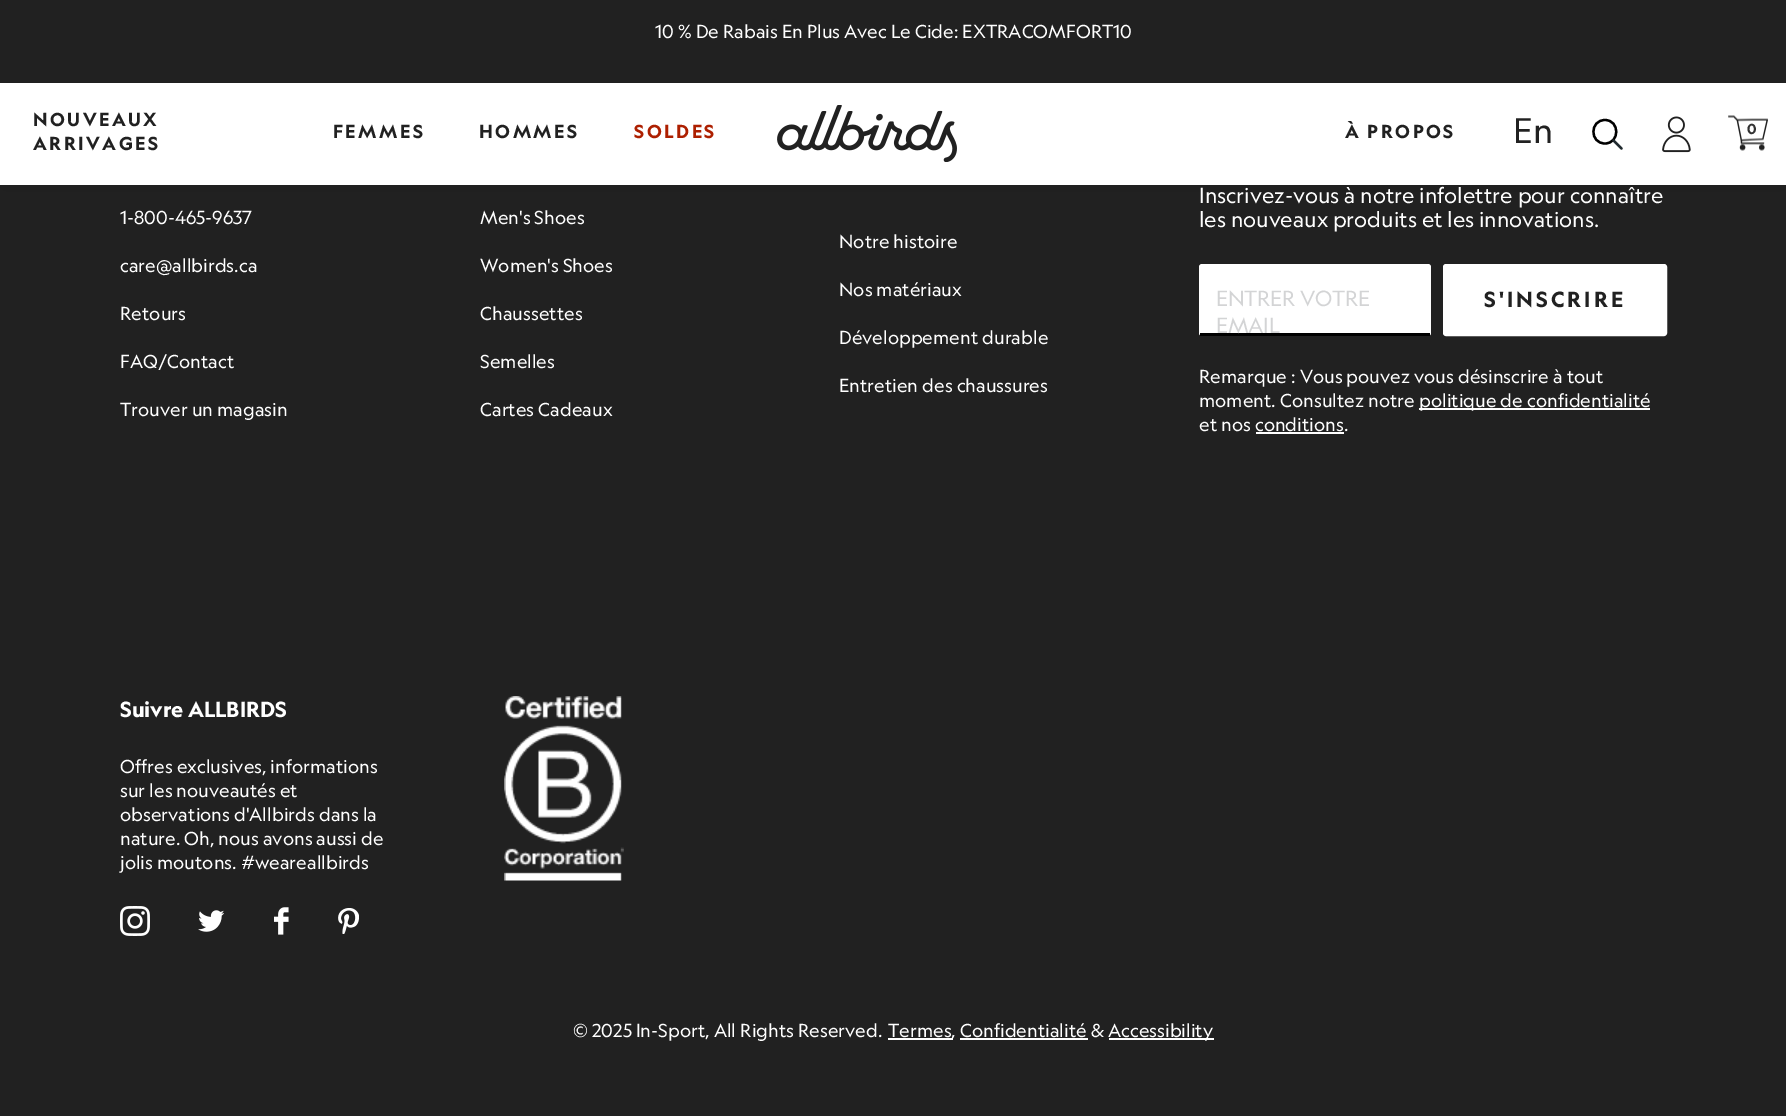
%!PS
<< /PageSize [1786 1116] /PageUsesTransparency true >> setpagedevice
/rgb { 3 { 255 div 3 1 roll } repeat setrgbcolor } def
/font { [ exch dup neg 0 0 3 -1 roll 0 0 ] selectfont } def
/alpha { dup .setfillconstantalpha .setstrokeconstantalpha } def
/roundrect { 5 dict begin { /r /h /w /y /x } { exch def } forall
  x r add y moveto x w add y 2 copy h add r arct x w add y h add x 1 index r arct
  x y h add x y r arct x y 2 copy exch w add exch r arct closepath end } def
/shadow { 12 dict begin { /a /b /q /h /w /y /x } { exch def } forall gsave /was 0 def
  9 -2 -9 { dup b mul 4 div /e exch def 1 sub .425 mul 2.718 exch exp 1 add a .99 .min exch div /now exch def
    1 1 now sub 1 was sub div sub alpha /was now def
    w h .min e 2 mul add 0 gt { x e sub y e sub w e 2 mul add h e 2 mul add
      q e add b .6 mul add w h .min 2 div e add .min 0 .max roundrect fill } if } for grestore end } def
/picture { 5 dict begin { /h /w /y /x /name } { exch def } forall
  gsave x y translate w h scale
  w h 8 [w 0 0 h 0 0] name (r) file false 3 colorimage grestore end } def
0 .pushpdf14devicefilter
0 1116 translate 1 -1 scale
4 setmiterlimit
33 33 33 rgb
0 0 1786 1116 rectfill
0 0 0 rgb
0 86 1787 102 0 18 0.09 shadow
255 255 255 rgb
0 83 1786 102 rectfill
(img/1.rgb) 777 105 180 57 picture
0 0 0 rgb
2.3 setlinewidth
1 setlinecap
1 setlinejoin
1605 143.5 moveto 1620 143.5 1620 120 1605 120 curveto 1589.5 120 1589.5 143.5 1605 143.5 curveto closepath stroke
33 42 47 rgb
1621.5 148.5 moveto 1613.5 140.5 lineto stroke
(img/2.rgb) 1662 116 29 37 picture
(img/3.rgb) 1728 115 40 36 picture
255 255 255 rgb
1199 264 232 72 3 roundrect fill
0 0 0 rgb
1200 333 230 3 rectfill
255 255 255 rgb
1444 265 222 70 2 roundrect gsave fill grestore
2 setlinewidth
0 setlinecap
0 setlinejoin
stroke
1419 408 231 2 rectfill
1256 432 88 2 rectfill
(img/4.rgb) 120 906 30 30 picture
(img/5.rgb) 198 910 26 22 picture
(img/6.rgb) 274 907 15 28 picture
(img/7.rgb) 338 908 21 26 picture
(img/8.rgb) 504 696 120 185 picture
[
  [888 1038 65 2 255 255 255]
  [1109 1038 105 2 255 255 255]
  [960 1038 128 2 255 255 255]
] { aload pop rgb rectfill } forall
/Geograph-Regular 18 font
655 38 moveto (10 % De Rabais En Plus Avec Le Cide: EXTRACOMFORT10) show
/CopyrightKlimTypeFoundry-Bold 18 font
33 33 33 rgb
33 126 moveto 2.5 0 (NOUVEAUX) ashow
33 150 moveto 2.5 0 (ARRIVAGES) ashow
333 138 moveto 2.5 0 (FEMMES) ashow
479 138 moveto 2.5 0 (HOMMES) ashow
173 31 0 rgb
634 138 moveto 2.5 0 (SOLDES) ashow
33 33 33 rgb
1345 138 moveto 2.5 0 (À PROPOS) ashow
/Geograph-Regular 34 font
1513 143 moveto (En) show
/CopyrightKlimTypeFoundry-Bold 14 font
51 51 51 rgb
1747 134 moveto (0) show
/Geograph-Regular 18 font
255 255 255 rgb
[
  [(1-800-465-9637) 120 224]
  [(care@allbirds.ca) 120 272]
  [(Retours) 120 320]
  [(FAQ/Contact) 120 368]
  [(Trouver un magasin) 120 416]
  [(Men's Shoes) 480 224]
  [(Women's Shoes) 480 272]
  [(Chaussettes) 480 320]
  [(Semelles) 480 368]
  [(Cartes Cadeaux) 480 416]
  [(Notre histoire) 839 248]
  [(Nos matériaux) 839 296]
  [(Développement durable) 839 344]
  [(Entretien des chaussures) 839 392]
] { aload pop moveto show } forall
/Geograph-Regular 21 font
1199 203 moveto (Inscrivez-vous à notre infolettre pour connaître) show
1199 227 moveto (les nouveaux produits et les innovations.) show
211 212 213 rgb
1216 306 moveto -0.25 0 (ENTRER VOTRE) ashow
1216 333 moveto -0.25 0 (EMAIL) ashow
/CopyrightKlimTypeFoundry-Bold 21 font
33 33 33 rgb
1484 307 moveto 3 0 (S'INSCRIRE) ashow
/Geograph-Regular 18 font
255 255 255 rgb
[
  [(Remarque : Vous pouvez vous désinscrire à tout) 1199 383]
  [(moment. Consultez notre) 1199 407]
  [(politique de confidentialité) 1419 407]
  [(et nos conditions.) 1199 431]
] { aload pop moveto show } forall
/CopyrightKlimTypeFoundry-Bold 21 font
120 717 moveto (Suivre ALLBIRDS) show
/Geograph-Regular 18 font
[
  [(Offres exclusives, informations) 120 773]
  [(sur les nouveautés et) 120 797]
  [(observations d'Allbirds dans la) 120 821]
  [(nature. Oh, nous avons aussi de) 120 845]
  [(jolis moutons. #weareallbirds) 120 869]
  [(© 2025 In-Sport, All Rights Reserved.) 573 1037]
  [(Termes, Confidentialité &) 888 1037]
  [(Accessibility) 1108 1037]
] { aload pop moveto show } forall
.poppdf14devicefilter showpage
